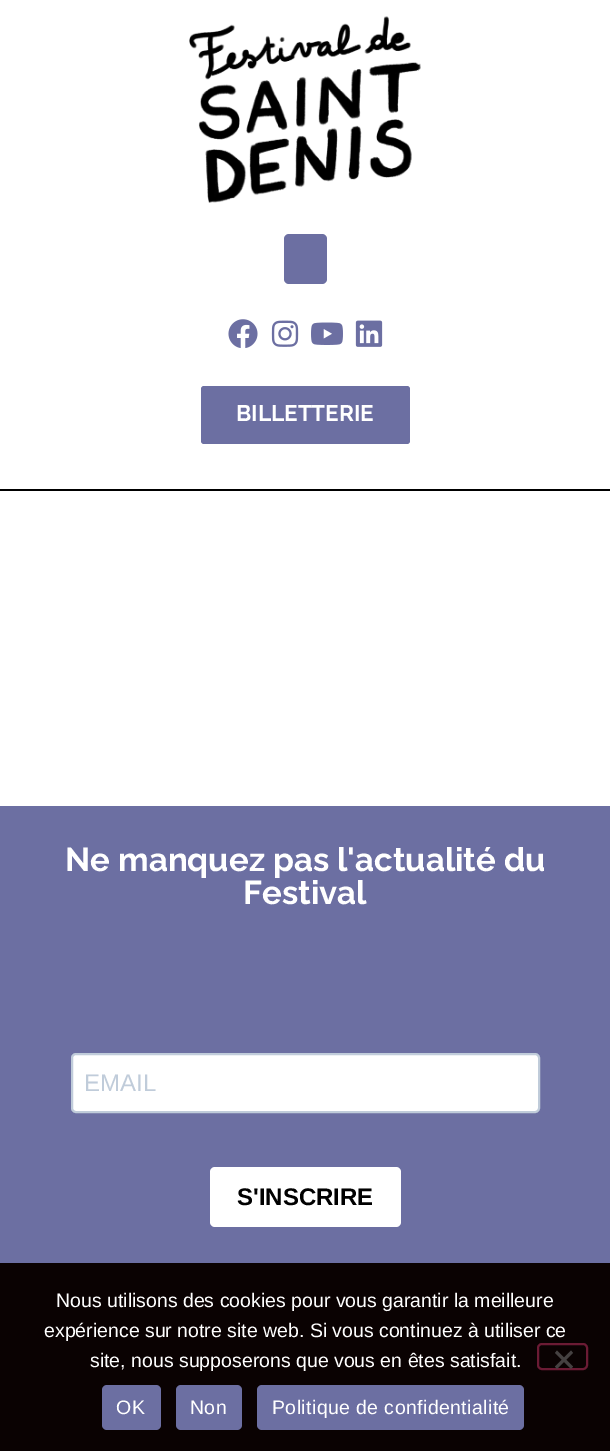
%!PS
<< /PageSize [610 1451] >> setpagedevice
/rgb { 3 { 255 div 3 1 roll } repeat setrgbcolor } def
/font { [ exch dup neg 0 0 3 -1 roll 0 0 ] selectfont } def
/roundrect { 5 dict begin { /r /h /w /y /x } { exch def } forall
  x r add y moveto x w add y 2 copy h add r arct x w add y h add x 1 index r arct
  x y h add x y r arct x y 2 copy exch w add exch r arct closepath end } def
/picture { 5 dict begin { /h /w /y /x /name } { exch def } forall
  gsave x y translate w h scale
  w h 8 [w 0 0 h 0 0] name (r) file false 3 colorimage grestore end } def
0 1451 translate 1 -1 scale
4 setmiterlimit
255 255 255 rgb
0 0 610 1451 rectfill
(img/1.rgb) 189 16 232 187 picture
108 111 162 rgb
284 234 43 50 5 roundrect fill
(img/2.rgb) 228 319 30 29 picture
(img/3.rgb) 271 320 28 27 picture
(img/4.rgb) 311 322 32 23 picture
(img/5.rgb) 355 320 28 27 picture
201 386 209 58 3 roundrect fill
0 0 0 rgb
0 489 610 2 rectfill
108 111 162 rgb
0 806 610 457 rectfill
255 255 255 rgb
72 1054 467 58 4 roundrect gsave fill grestore
192 204 218 rgb
2 setlinewidth
stroke
255 255 255 rgb
210 1167 191 60 5 roundrect fill
10 2 2 rgb
0 1263 610 188 rectfill
107 27 52 rgb
538 1344 49 25 4 roundrect stroke
69 65 65 rgb
571 1350.5 moveto 573 1353 lineto 557 1369 lineto 555 1366.5 lineto closepath fill
555 1353 moveto 557 1350.5 lineto 573 1366.5 lineto 571 1369 lineto closepath fill
108 111 162 rgb
102 1385 59 45 5 roundrect fill
176 1385 66 45 5 roundrect fill
257 1385 267 45 5 roundrect fill
/Raleway-Bold 22.5 font
255 255 255 rgb
236 421 moveto (BILLETTERIE) show
/Raleway-Bold 33 font
65 871 moveto (Ne manquez pas l'actualité du) show
243 904 moveto (Festival) show
/LiberationSans-Regular 24 font
192 204 218 rgb
84 1091 moveto (EMAIL) show
/LiberationSans-Bold 24 font
0 0 0 rgb
237 1205 moveto (S'INSCRIRE) show
/LiberationSans-Regular 19.5 font
255 255 255 rgb
[
  [(Nous utilisons des cookies pour vous garantir la meilleure) 56 1307]
  [(expérience sur notre site web. Si vous continuez à utiliser ce) 44 1337]
  [(site, nous supposerons que vous en êtes satisfait.) 90 1367]
] { aload pop moveto show } forall
116 1414 moveto 0.4 0 (OK) ashow
190 1414 moveto 0.4 0 (Non) ashow
272 1414 moveto 0.4 0 (Politique de confidentialité) ashow
showpage
